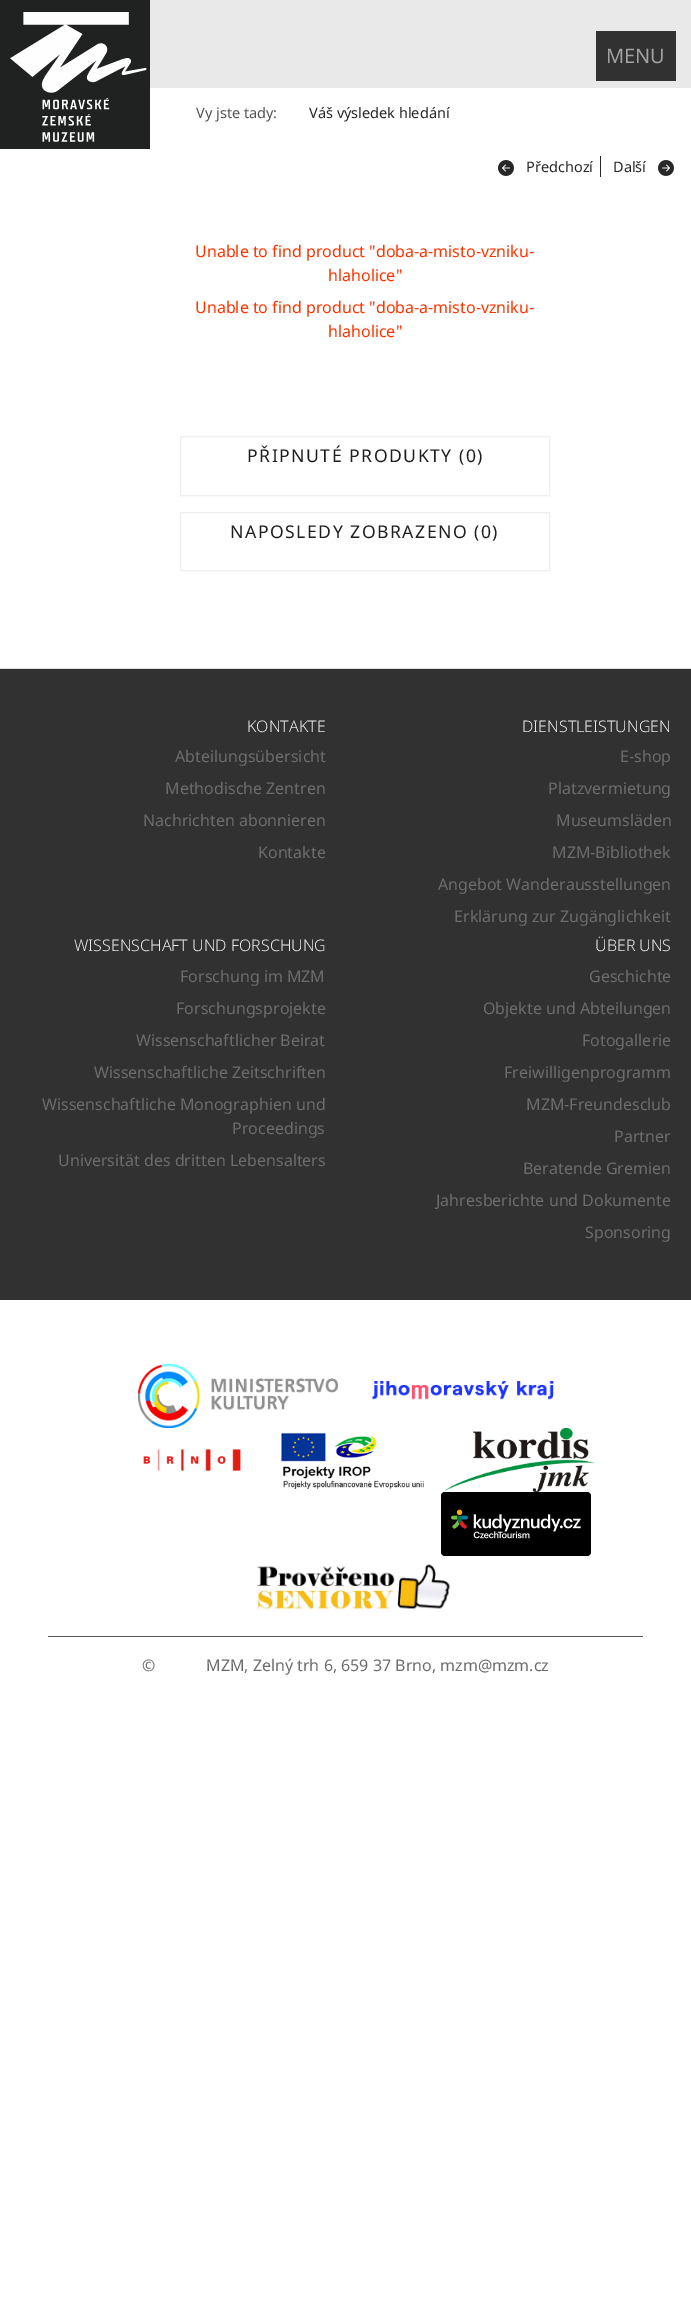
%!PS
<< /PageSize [691 2319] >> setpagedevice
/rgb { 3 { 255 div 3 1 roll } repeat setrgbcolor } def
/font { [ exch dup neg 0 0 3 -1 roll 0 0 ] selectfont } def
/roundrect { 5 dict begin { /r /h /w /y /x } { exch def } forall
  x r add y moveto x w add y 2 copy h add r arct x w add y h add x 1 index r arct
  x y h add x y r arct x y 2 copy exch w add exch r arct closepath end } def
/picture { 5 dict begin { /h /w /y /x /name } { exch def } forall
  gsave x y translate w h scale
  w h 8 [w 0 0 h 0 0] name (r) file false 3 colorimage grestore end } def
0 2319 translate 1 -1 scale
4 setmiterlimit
255 255 255 rgb
0 0 691 2319 rectfill
233 233 233 rgb
150 0 541 88 rectfill
49 49 49 rgb
596 31 80 50 rectfill
(img/1.rgb) 0 0 150 149 picture
40 40 40 rgb
600 156 1 21 rectfill
(img/2.rgb) 498 160 16 16 picture
(img/3.rgb) 658 160 16 16 picture
239 239 239 rgb
180.5 436.5 369 59 rectstroke
180.5 512.5 369 58 rectstroke
[
  [0 669 691 631 49 49 49]
  [0 668 691 1 222 222 222]
  [48 1636 595 1 85 85 85]
] { aload pop rgb rectfill } forall
(img/4.rgb) 138 1364 200 64 picture
(img/5.rgb) 371 1381 183 19 picture
(img/6.rgb) 143 1449 98 22 picture
(img/7.rgb) 281 1432 143 58 picture
(img/8.rgb) 445 1428 150 64 picture
0 0 0 rgb
441 1492 150 64 4 roundrect fill
(img/9.rgb) 451 1509 130 30 picture
(img/10.rgb) 256 1564 194 47 picture
/NotoSans-Regular 20 font
162 162 162 rgb
606 63 moveto (MENU) show
/NotoSans-Regular 14.5 font
85 85 85 rgb
196 118 moveto (Vy jste tady:) show
40 40 40 rgb
[
  [(Váš výsledek hledání) 309 118]
  [(Předchozí) 526 172]
  [(Další) 613 172]
] { aload pop moveto show } forall
/NotoSans-Regular 16 font
255 51 0 rgb
[
  [(Unable to find product "doba-a-misto-vzniku-) 195 257]
  [(hlaholice") 328 281]
  [(Unable to find product "doba-a-misto-vzniku-) 195 313]
  [(hlaholice") 328 337]
] { aload pop moveto show } forall
/NotoSans-Regular 17.6 font
31 31 31 rgb
247 462 moveto 1.5 0 (PŘIPNUTÉ PRODUKTY \(0\)) ashow
230 538 moveto 1.5 0 (NAPOSLEDY ZOBRAZENO \(0\)) ashow
/NotoSans-Light 16 font
233 233 233 rgb
247 732 moveto (KONTAKTE) show
/NotoSans-Regular 16 font
108 108 108 rgb
[
  [(Abteilungsübersicht) 175 762]
  [(Methodische Zentren) 165 794]
  [(Nachrichten abonnieren) 143 826]
  [(Kontakte) 258 858]
] { aload pop moveto show } forall
/NotoSans-Light 16 font
233 233 233 rgb
522 732 moveto (DIENSTLEISTUNGEN) show
/NotoSans-Regular 16 font
108 108 108 rgb
[
  [(E-shop) 620 762]
  [(Platzvermietung) 548 794]
  [(Museumsläden) 556 826]
  [(MZM-Bibliothek) 552 858]
  [(Angebot Wanderausstellungen) 438 890]
  [(Erklärung zur Zugänglichkeit) 454 922]
] { aload pop moveto show } forall
/NotoSans-Light 16 font
233 233 233 rgb
74 951 moveto (WISSENSCHAFT UND FORSCHUNG) show
/NotoSans-Regular 16 font
108 108 108 rgb
[
  [(Forschung im MZM) 180 982]
  [(Forschungsprojekte) 176 1014]
  [(Wissenschaftlicher Beirat) 136 1046]
  [(Wissenschaftliche Zeitschriften) 94 1078]
  [(Wissenschaftliche Monographien und) 42 1110]
  [(Proceedings) 232 1134]
  [(Universität des dritten Lebensalters) 58 1166]
] { aload pop moveto show } forall
/NotoSans-Light 16 font
233 233 233 rgb
595 951 moveto (ÜBER UNS) show
/NotoSans-Regular 16 font
108 108 108 rgb
[
  [(Geschichte) 589 982]
  [(Objekte und Abteilungen) 483 1014]
  [(Fotogallerie) 582 1046]
  [(Freiwilligenprogramm) 504 1078]
  [(MZM-Freundesclub) 526 1110]
  [(Partner) 614 1142]
  [(Beratende Gremien) 523 1174]
  [(Jahresberichte und Dokumente) 436 1206]
  [(Sponsoring) 585 1238]
  [(©) 142 1671]
  [(MZM, Zelný trh 6, 659 37 Brno, mzm@mzm.cz) 206 1671]
] { aload pop moveto show } forall
showpage
